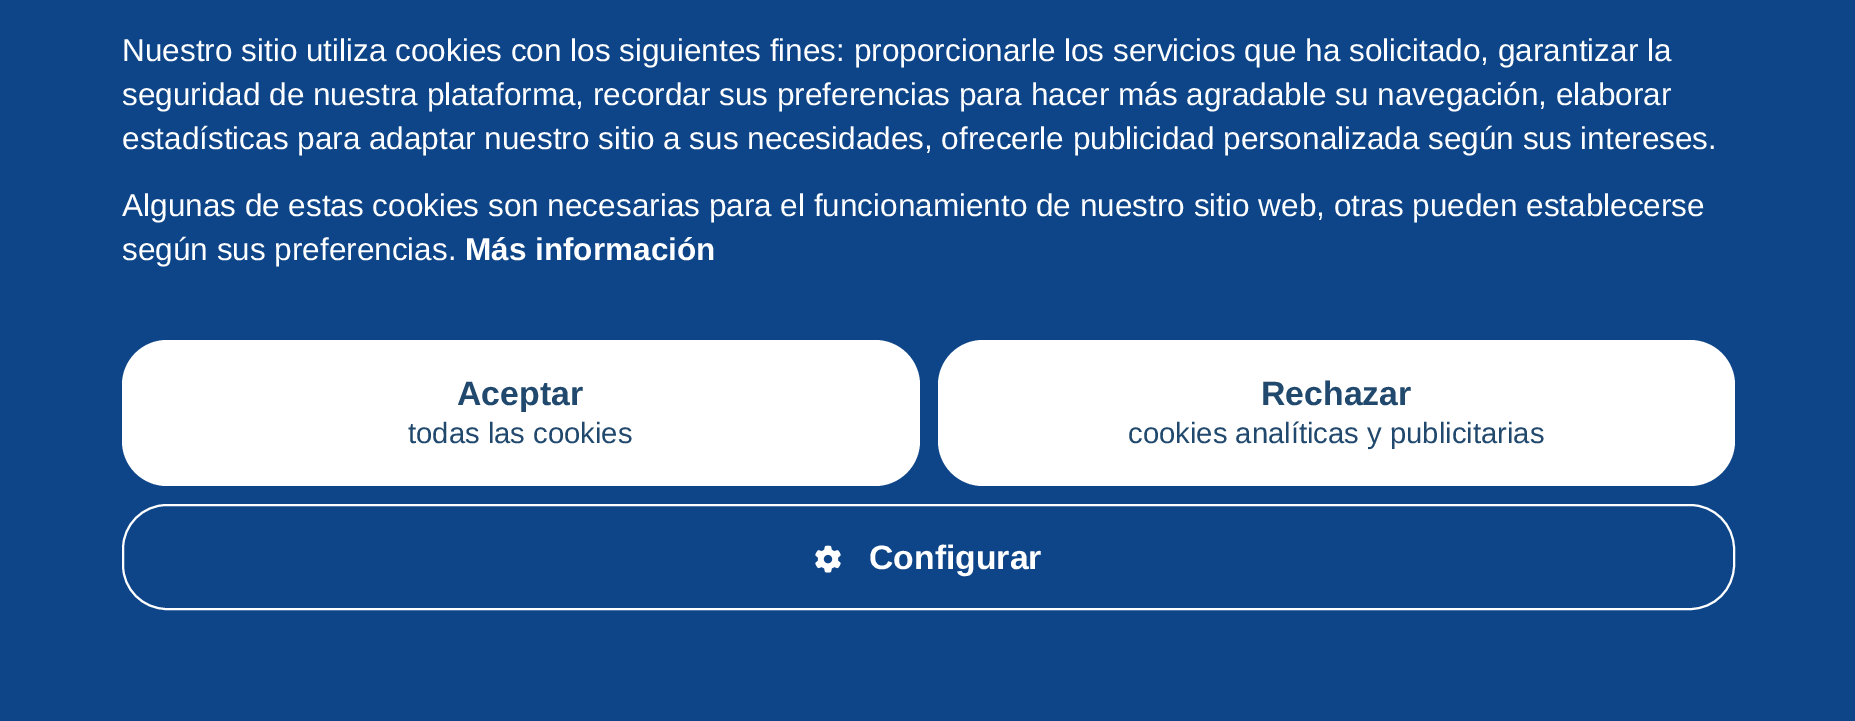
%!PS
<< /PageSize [1855 721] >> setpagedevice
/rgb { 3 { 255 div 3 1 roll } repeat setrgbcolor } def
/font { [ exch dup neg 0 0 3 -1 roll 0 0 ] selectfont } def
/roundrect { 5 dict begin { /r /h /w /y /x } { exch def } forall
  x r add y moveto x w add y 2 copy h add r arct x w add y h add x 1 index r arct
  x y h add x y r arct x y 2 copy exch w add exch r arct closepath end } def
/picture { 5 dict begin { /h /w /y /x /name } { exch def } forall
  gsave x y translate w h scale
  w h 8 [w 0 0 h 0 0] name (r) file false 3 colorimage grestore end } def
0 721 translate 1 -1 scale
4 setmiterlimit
14 69 136 rgb
0 0 1855 721 rectfill
255 255 255 rgb
122 340 798 146 45 roundrect fill
938 340 797 146 45 roundrect fill
2 setlinewidth
123 505 1611 104 44 roundrect stroke
(img/1.rgb) 815 545 26 28 picture
/LiberationSans-Regular 31.5 font
[
  [(Nuestro sitio utiliza cookies con los siguientes fines: proporcionarle los servicios que ha solicitado, garantizar la) 122 61]
  [(seguridad de nuestra plataforma, recordar sus preferencias para hacer más agradable su navegación, elaborar) 122 105]
  [(estadísticas para adaptar nuestro sitio a sus necesidades, ofrecerle publicidad personalizada según sus intereses.) 122 149]
  [(Algunas de estas cookies son necesarias para el funcionamiento de nuestro sitio web, otras pueden establecerse) 122 216]
  [(según sus preferencias.) 122 260]
] { aload pop moveto show } forall
/LiberationSans-Bold 31.5 font
465 260 moveto (Más información) show
/LiberationSans-Bold 33.75 font
33 72 109 rgb
457 405 moveto (Aceptar) show
/LiberationSans-Regular 29.25 font
408 443 moveto (todas las cookies) show
/LiberationSans-Bold 33.75 font
1261 405 moveto (Rechazar) show
/LiberationSans-Regular 29.25 font
1128 443 moveto (cookies analíticas y publicitarias) show
/LiberationSans-Bold 33.75 font
255 255 255 rgb
869 569 moveto (Configurar) show
showpage
